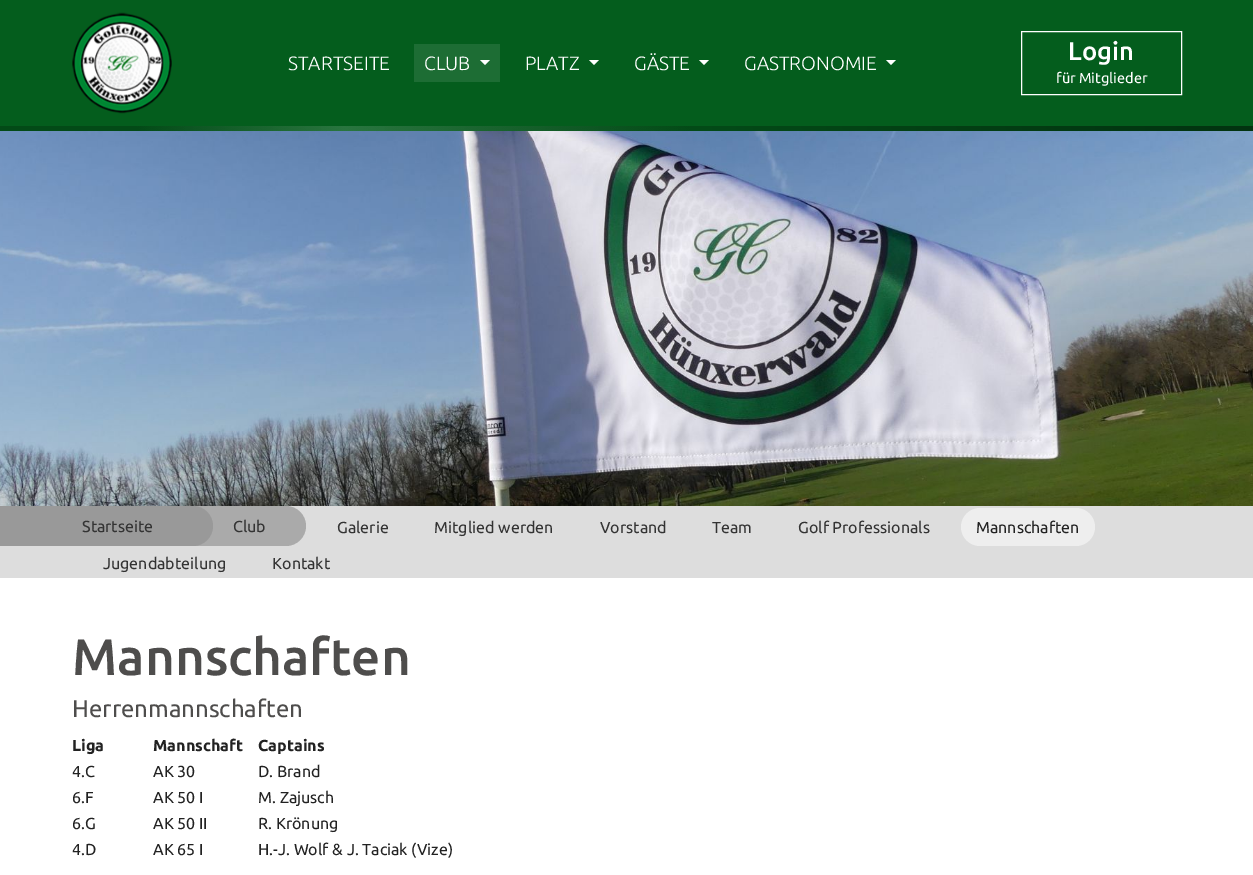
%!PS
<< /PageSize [1253 875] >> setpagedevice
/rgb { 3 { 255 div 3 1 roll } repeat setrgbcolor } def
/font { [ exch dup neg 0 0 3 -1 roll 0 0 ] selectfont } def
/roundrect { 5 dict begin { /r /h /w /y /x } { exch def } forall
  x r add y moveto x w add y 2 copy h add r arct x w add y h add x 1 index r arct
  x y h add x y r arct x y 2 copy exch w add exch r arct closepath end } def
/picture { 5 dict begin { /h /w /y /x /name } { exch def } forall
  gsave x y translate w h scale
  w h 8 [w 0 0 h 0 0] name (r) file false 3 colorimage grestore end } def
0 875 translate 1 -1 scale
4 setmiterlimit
255 255 255 rgb
0 0 1253 875 rectfill
4 93 29 rgb
0 0 1253 131 rectfill
(img/1.rgb) 0 126 1253 5 picture
(img/2.rgb) 72 12 100 102 picture
29 109 52 rgb
414 44 86 38 rectfill
255 255 255 rgb
480 60 moveto 490 60 lineto 485 65 lineto closepath fill
589 60 moveto 599 60 lineto 594 65 lineto closepath fill
699 60 moveto 709 60 lineto 704 65 lineto closepath fill
886 60 moveto 896 60 lineto 891 65 lineto closepath fill
1021.5 31.5 160 63 rectstroke
(img/3.rgb) 0 131 1253 375 picture
221 221 221 rgb
0 506 1253 72 rectfill
153 153 153 rgb
0 506 173 40 rectfill
170 170 170 rgb
193 506 moveto 286 506 lineto 297 506 306 515 306 526 curveto 306 537 297 546 286 546 curveto 193 546 lineto closepath fill
153 153 153 rgb
173 506 moveto 193 506 lineto 204 506 213 515 213 526 curveto 213 537 204 546 193 546 curveto 173 546 lineto closepath fill
238 238 238 rgb
961 508 134 38 19 roundrect fill
/Ubuntu-Light 19.25 font
255 255 255 rgb
[
  [(STARTSEITE) 288 70]
  [(CLUB) 424 70]
  [(PLATZ) 525 70]
  [(GÄSTE) 634 70]
  [(GASTRONOMIE) 744 70]
] { aload pop moveto show } forall
/Ubuntu-Medium 25.5 font
1068 60 moveto (Login) show
/Ubuntu-Regular 14.5 font
1056 83 moveto (für Mitglieder) show
/Ubuntu-Regular 16 font
51 51 51 rgb
[
  [(Startseite) 82 532]
  [(Club) 233 532]
  [(Galerie) 337 533]
  [(Mitglied werden) 434 533]
  [(Vorstand) 600 533]
  [(Team) 712 533]
  [(Golf Professionals) 798 533]
] { aload pop moveto show } forall
34 34 34 rgb
976 533 moveto (Mannschaften) show
51 51 51 rgb
103 569 moveto (Jugendabteilung) show
272 569 moveto (Kontakt) show
/Ubuntu-Medium 51.25 font
78 77 76 rgb
72 675 moveto (Mannschaften) show
/Ubuntu-Regular 24 font
72 717 moveto (Herrenmannschaften) show
/Ubuntu-Bold 16 font
34 34 34 rgb
[
  [(Liga) 72 751]
  [(Mannschaft) 153 751]
  [(Captains) 258 751]
] { aload pop moveto show } forall
/Ubuntu-Regular 16 font
[
  [(4.C) 72 777]
  [(AK 30) 153 777]
  [(D. Brand) 258 777]
  [(6.F) 72 803]
  [(AK 50 I) 153 803]
  [(M. Zajusch) 258 803]
  [(6.G) 72 829]
  [(AK 50 II) 153 829]
  [(R. Krönung) 258 829]
  [(4.D) 72 855]
  [(AK 65 I) 153 855]
  [(H.-J. Wolf & J. Taciak \(Vize\)) 258 855]
] { aload pop moveto show } forall
showpage
